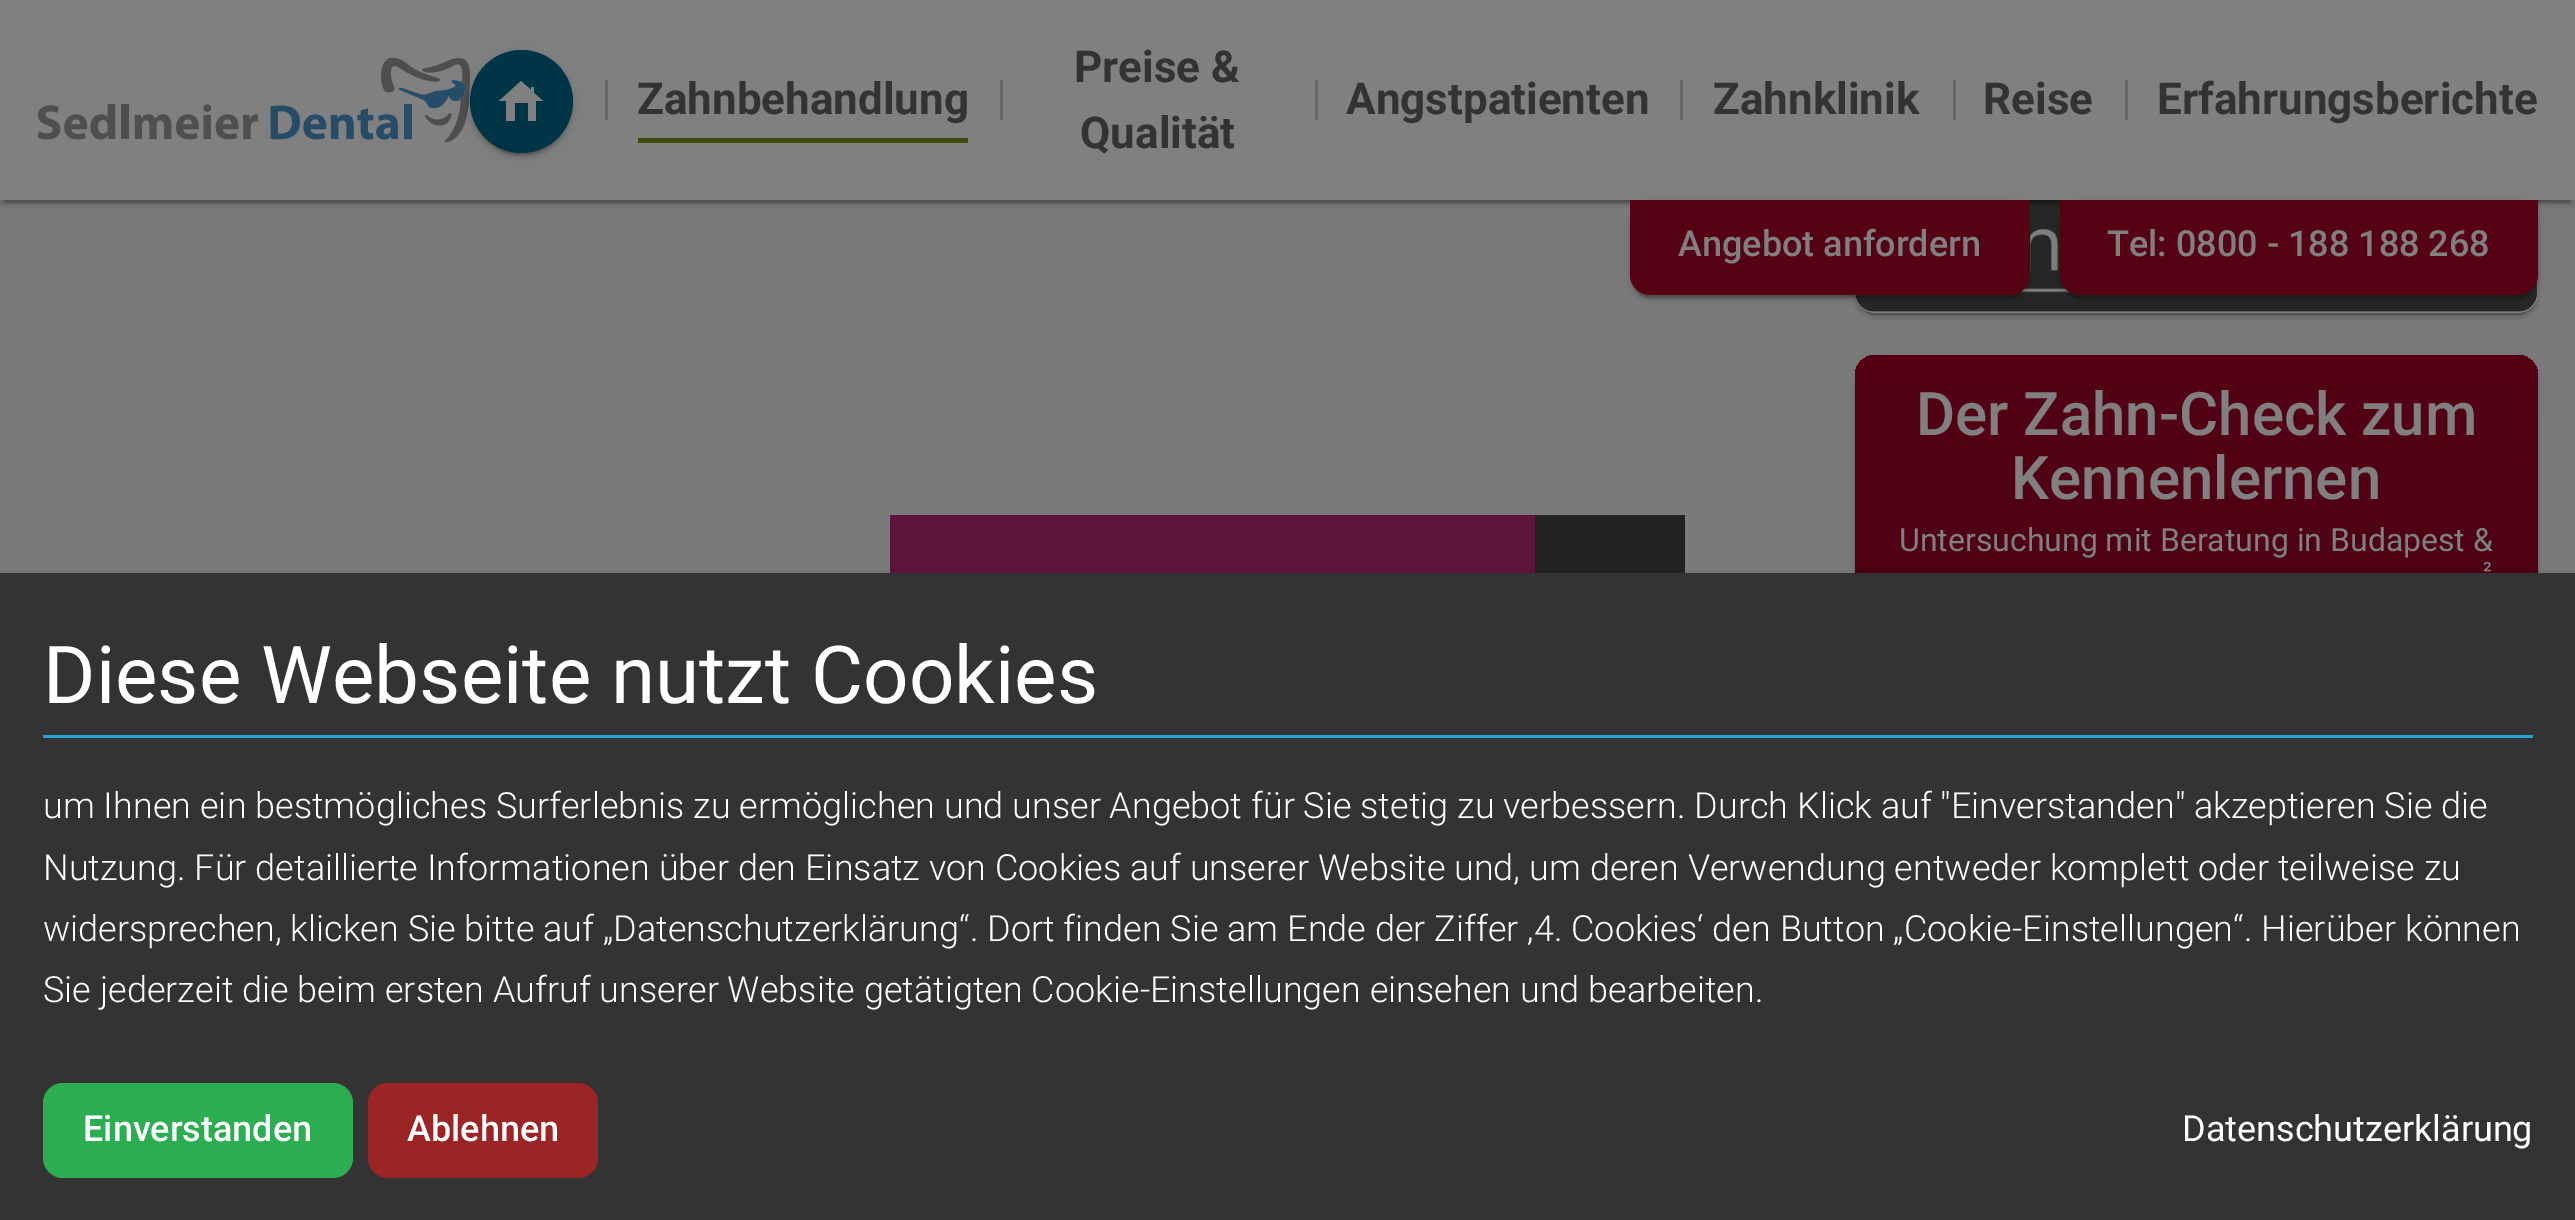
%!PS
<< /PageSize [2575 1220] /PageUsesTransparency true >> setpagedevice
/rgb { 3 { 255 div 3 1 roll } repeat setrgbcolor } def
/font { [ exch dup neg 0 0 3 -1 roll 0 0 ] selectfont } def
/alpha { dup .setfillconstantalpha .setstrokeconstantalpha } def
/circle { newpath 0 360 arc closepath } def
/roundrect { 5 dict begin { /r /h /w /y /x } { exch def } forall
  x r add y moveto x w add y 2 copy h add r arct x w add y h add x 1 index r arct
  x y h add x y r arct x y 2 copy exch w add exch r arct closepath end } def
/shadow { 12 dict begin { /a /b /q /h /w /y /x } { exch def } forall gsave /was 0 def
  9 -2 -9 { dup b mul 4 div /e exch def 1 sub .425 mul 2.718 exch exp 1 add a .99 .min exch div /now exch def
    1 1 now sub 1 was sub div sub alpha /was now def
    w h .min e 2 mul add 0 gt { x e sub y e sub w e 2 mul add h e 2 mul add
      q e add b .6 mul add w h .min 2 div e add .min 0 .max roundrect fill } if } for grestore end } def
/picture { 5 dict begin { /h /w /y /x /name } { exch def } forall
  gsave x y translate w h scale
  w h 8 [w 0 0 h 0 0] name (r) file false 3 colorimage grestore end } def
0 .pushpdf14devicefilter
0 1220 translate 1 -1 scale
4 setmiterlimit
122 122 122 rgb
0 0 2575 1220 rectfill
0 0 0 rgb
1855 -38 683 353 20 6 0.12 shadow
1860 -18 673 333 15 1 0.2 shadow
1855 -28 683 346 20 2.5 0.14 shadow
gsave
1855 -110 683 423 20 roundrect clip newpath
1860 -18 673 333 15 1 0.2 shadow
1855 -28 683 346 20 2.5 0.14 shadow
grestore
128 128 128 rgb
1855 -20 683 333 20 roundrect fill
(img/2.rgb) 1855 200 683 112 picture
0 0 0 rgb
0 3 2575 200 0 6 0.12 shadow
5 13 2565 190 0 1 0.2 shadow
0 5 2575 200 0 2.5 0.14 shadow
128 128 128 rgb
0 0 2575 200 rectfill
(img/1.rgb) 38 58 432 85 picture
0 0 0 rgb
470 53 103 102 51 6 0.12 shadow
470 55 103 103 51.5 2.5 0.14 shadow
475 63 93 92 46 1 0.2 shadow
0 53 71 rgb
521.5 101.5 51.5 circle fill
128 128 128 rgb
521 81 moveto 499 101 lineto 506 101 lineto 506 121 lineto 515 121 lineto 515 103 lineto 528 103 lineto 528 121 lineto 536 121 lineto 536 101 lineto 543 101 lineto 534 93 lineto 534 87 lineto 531 87 lineto 531 90 lineto closepath fill
[
  [605 80 3 40 102 102 102]
  [638 138 330 5 60 76 12]
  [1000 80 3 40 102 102 102]
  [1315 80 3 40 102 102 102]
  [1680 80 3 40 102 102 102]
  [1953 80 3 40 102 102 102]
  [2125 80 3 40 102 102 102]
] { aload pop rgb rectfill } forall
0 0 0 rgb
1630 203 400 95 20 6 0.12 shadow
1635 213 390 85 15 1 0.2 shadow
1630 205 400 95 20 2.5 0.14 shadow
85 2 21 rgb
1630 200 moveto 2030 200 lineto 2030 275 lineto 2030 286 2021 295 2010 295 curveto 1650 295 lineto 1639 295 1630 286 1630 275 curveto closepath fill
0 0 0 rgb
2060 203 478 95 20 6 0.12 shadow
2065 213 468 85 15 1 0.2 shadow
2060 205 478 95 20 2.5 0.14 shadow
85 2 21 rgb
2060 200 moveto 2538 200 lineto 2538 275 lineto 2538 286 2529 295 2518 295 curveto 2080 295 lineto 2069 295 2060 286 2060 275 curveto closepath fill
94 20 61 rgb
890 515 645 58 rectfill
33 33 33 rgb
1535 515 150 58 rectfill
0 0 0 rgb
1855 358 683 785 20 6 0.12 shadow
1855 360 683 785 20 2.5 0.14 shadow
gsave
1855 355 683 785 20 roundrect clip newpath
1855 358 683 785 20 6 0.12 shadow
1855 360 683 785 20 2.5 0.14 shadow
grestore
gsave 1855 355 683 785 20 roundrect clip newpath
<< /ShadingType 2 /ColorSpace /DeviceRGB /Coords [2196 355 2196 1140] /Extend [true true] /Function << /FunctionType 3 /Domain [0 1] /Functions [<< /FunctionType 2 /Domain [0 1] /C0 [0.333 0.008 0.082] /C1 [0.282 0.004 0.067] /N 1 >> << /FunctionType 2 /Domain [0 1] /C0 [0.282 0.004 0.067] /C1 [0.216 0 0.051] /N 1 >>] /Bounds [0.44] /Encode [0 1 0 1] >> >> shfill grestore
0 575 2575 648 0 6 0.12 shadow
51 51 51 rgb
0 573 2575 647 rectfill
33 165 218 rgb
43 735 2490 3 rectfill
45 173 82 rgb
43 1083 310 95 20 roundrect fill
155 37 37 rgb
368 1083 230 95 20 roundrect fill
/Roboto-Bold 44 font
51 51 51 rgb
[
  [(Zahnbehandlung) 637 114]
  [(Preise &) 1074 82]
  [(Qualität) 1080 148]
  [(Angstpatienten) 1346 114]
  [(Zahnklinik) 1713 114]
  [(Reise) 1983 114]
  [(Erfahrungsberichte) 2157 114]
] { aload pop moveto show } forall
/Roboto-Medium 36 font
128 128 128 rgb
1678 256 moveto (Angebot anfordern) show
2107 256 moveto (Tel: 0800 - 188 188 268) show
/Roboto-Medium 60 font
1916 435 moveto (Der Zahn-Check zum) show
2011 499 moveto (Kennenlernen) show
/Roboto-Regular 32 font
1899 551 moveto (Untersuchung mit Beratung in Budapest &) show
/Roboto-Regular 24 font
2483 579 moveto (²) show
/Roboto-Regular 80 font
255 255 255 rgb
43 703 moveto (Diese Webseite nutzt Cookies) show
/Roboto-Light 36 font
[
  [(um Ihnen ein bestmögliches Surferlebnis zu ermöglichen und unser Angebot für Sie stetig zu verbessern. Durch Klick auf "Einverstanden" akzeptieren Sie die) 43 818]
  [(Nutzung. Für detaillierte Informationen über den Einsatz von Cookies auf unserer Website und, um deren Verwendung entweder komplett oder teilweise zu) 43 880]
  [(widersprechen, klicken Sie bitte auf „Datenschutzerklärung“. Dort finden Sie am Ende der Ziffer ‚4. Cookies‘ den Button „Cookie-Einstellungen“. Hierüber können) 43 941]
  [(Sie jederzeit die beim ersten Aufruf unserer Website getätigten Cookie-Einstellungen einsehen und bearbeiten.) 43 1002]
] { aload pop moveto show } forall
/Roboto-Medium 36 font
83 1141 moveto (Einverstanden) show
407 1141 moveto (Ablehnen) show
/Roboto-Regular 36 font
2182 1141 moveto (Datenschutzerklärung) show
.poppdf14devicefilter showpage
